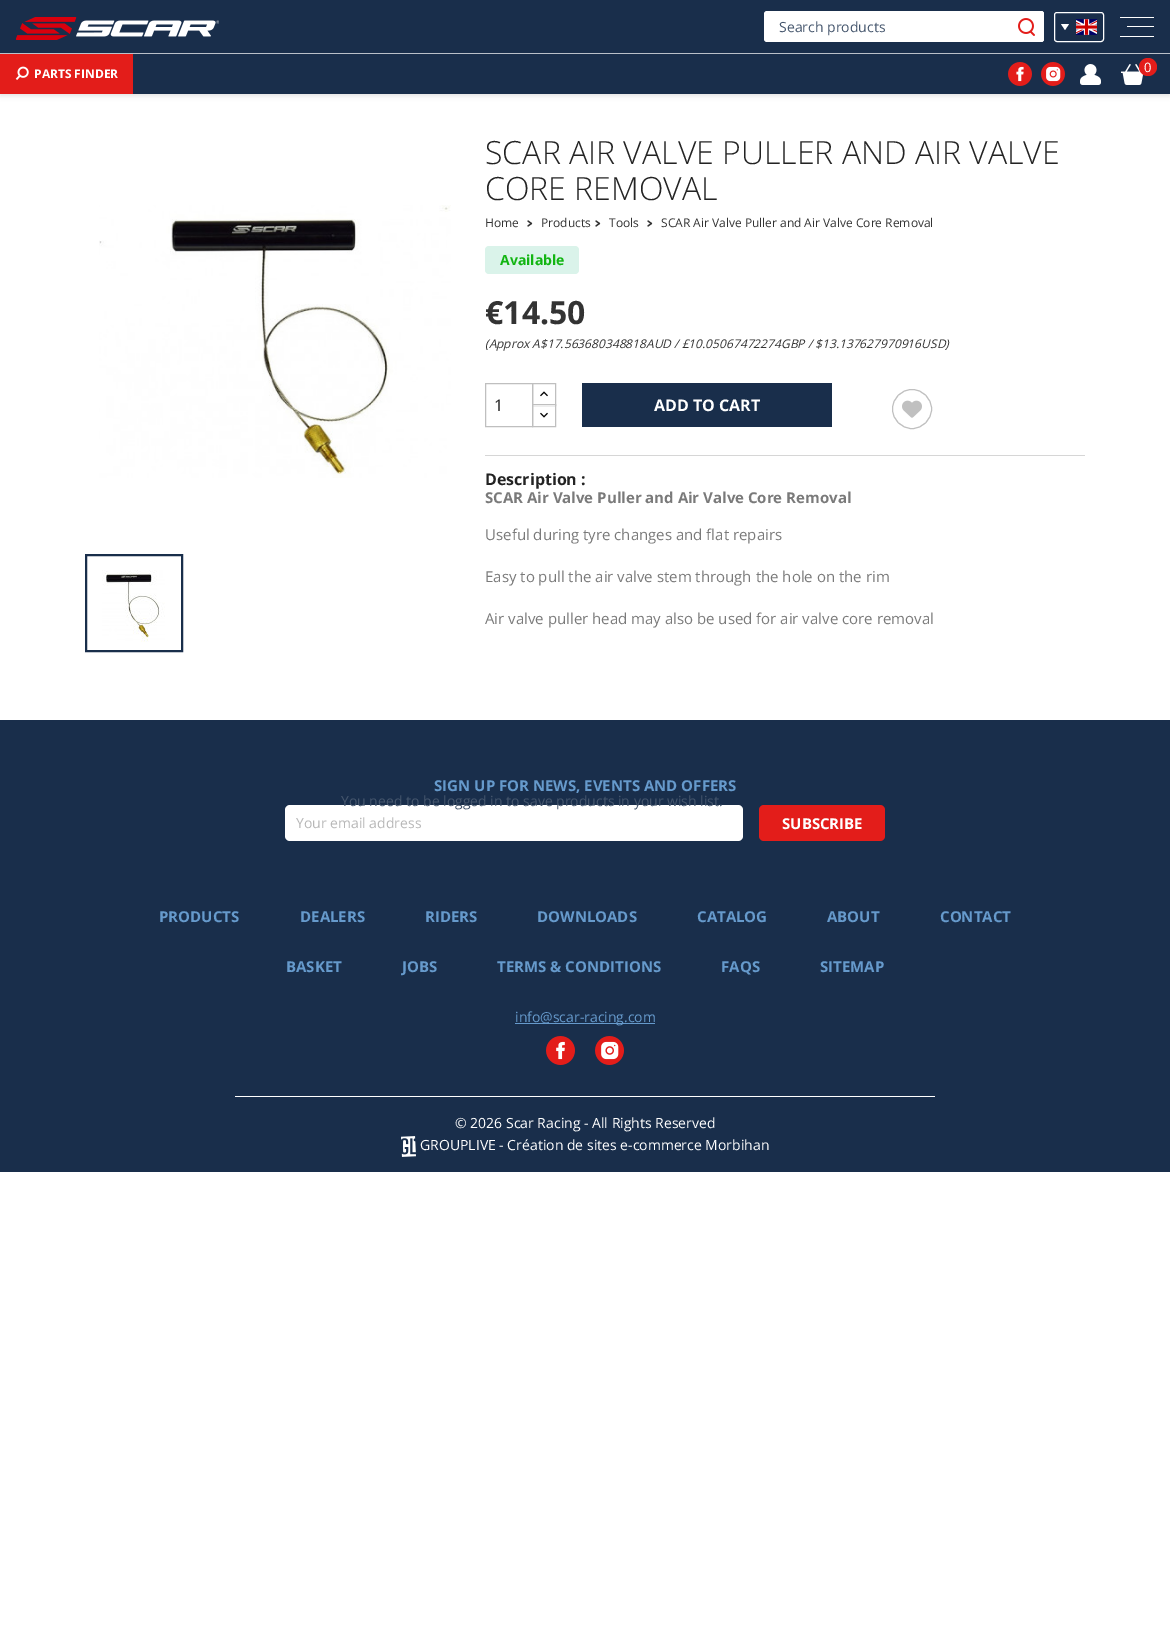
%!PS
<< /PageSize [1170 1651] /PageUsesTransparency true >> setpagedevice
/rgb { 3 { 255 div 3 1 roll } repeat setrgbcolor } def
/font { [ exch dup neg 0 0 3 -1 roll 0 0 ] selectfont } def
/alpha { dup .setfillconstantalpha .setstrokeconstantalpha } def
/circle { newpath 0 360 arc closepath } def
/roundrect { 5 dict begin { /r /h /w /y /x } { exch def } forall
  x r add y moveto x w add y 2 copy h add r arct x w add y h add x 1 index r arct
  x y h add x y r arct x y 2 copy exch w add exch r arct closepath end } def
/shadow { 12 dict begin { /a /b /q /h /w /y /x } { exch def } forall gsave /was 0 def
  9 -2 -9 { dup b mul 4 div /e exch def 1 sub .425 mul 2.718 exch exp 1 add a .99 .min exch div /now exch def
    1 1 now sub 1 was sub div sub alpha /was now def
    w h .min e 2 mul add 0 gt { x e sub y e sub w e 2 mul add h e 2 mul add
      q e add b .6 mul add w h .min 2 div e add .min 0 .max roundrect fill } if } for grestore end } def
/picture { 5 dict begin { /h /w /y /x /name } { exch def } forall
  gsave x y translate w h scale
  w h 8 [w 0 0 h 0 0] name (r) file false 3 colorimage grestore end } def
0 .pushpdf14devicefilter
0 1651 translate 1 -1 scale
4 setmiterlimit
255 255 255 rgb
0 0 1170 1651 rectfill
0 0 0 rgb
0 2 1170 94 0 2.5 0.11 shadow
25 46 75 rgb
0 0 1170 94 rectfill
186 192 201 rgb
0 53 1170 1 rectfill
(img/1.rgb) 16 17 203 23 picture
255 255 255 rgb
764 11 280 31 3 roundrect fill
1009 11 moveto 1041 11 lineto 1042.5 11 1044 12.5 1044 14 curveto 1044 39 lineto 1044 40.5 1042.5 42 1041 42 curveto 1009 42 lineto closepath fill
(img/2.rgb) 1018 18 17 18 picture
1054.5 12.5 49 29 2.5 roundrect stroke
1065 30 moveto 1061 24 lineto 1069 24 lineto closepath fill
(img/3.rgb) 1076 19 21 16 picture
[
  [1120 17 34 1 255 255 255]
  [1127 26 27 1 255 255 255]
  [1120 36 34 1 255 255 255]
] { aload pop rgb rectfill } forall
(img/4.rgb) 1008 62 24 24 picture
(img/5.rgb) 1041 62 24 24 picture
(img/6.rgb) 1080 64 21 21 picture
(img/7.rgb) 1121 64 23 21 picture
227 29 26 rgb
1148 67 9 circle fill
0 54 133 40 rectfill
(img/8.rgb) 15 66 14 14 picture
(img/9.rgb) 99 205 352 273 picture
(img/10.rgb) 102 570 63 72 picture
25 46 75 rgb
2 setlinewidth
86 555 96 96 rectstroke
(img/11.rgb) 527 220 6 7 picture
(img/11.rgb) 595 220 6 7 picture
(img/11.rgb) 647 220 6 7 picture
218 243 234 rgb
485 246 94 28 4 roundrect fill
214 214 214 rgb
485 455 600 1 rectfill
191 191 191 rgb
1 setlinewidth
532.5 383.5 23 22 rectstroke
255 255 255 rgb
533 405 22 1 rectfill
191 191 191 rgb
532.5 404.5 23 22 rectstroke
485.5 383.5 47 43 rectstroke
(img/12.rgb) 540 391 8 6 picture
(img/13.rgb) 540 412 8 6 picture
25 46 75 rgb
582 383 250 44 rectfill
192 192 192 rgb
912 409 19.5 circle stroke
(img/14.rgb) 902 400 20 18 picture
25 46 75 rgb
0 720 1170 452 rectfill
255 255 255 rgb
285 805 458 36 5 roundrect fill
227 29 26 rgb
759 805 126 36 5 roundrect fill
102 154 204 rgb
515 1023 140 1 rectfill
(img/15.rgb) 546 1036 29 29 picture
(img/16.rgb) 595 1036 29 29 picture
255 255 255 rgb
235 1096 700 1 rectfill
(img/17.rgb) 401 1136 15 21 picture
/OpenSans-Regular 14 font
69 86 109 rgb
779 32 moveto (Search products) show
/OpenSans-Regular 13 font
255 255 255 rgb
1144 72 moveto (0) show
/OpenSans-Bold 12 font
34 78 moveto (PARTS FINDER) show
/OpenSans-Light 32 font
35 35 35 rgb
485 164 moveto (SCAR AIR VALVE PULLER AND AIR VALVE) show
485 200 moveto (CORE REMOVAL) show
/OpenSans-Regular 12 font
51 51 51 rgb
[
  [(Home) 485 227]
  [(Products) 541 227]
  [(Tools) 609 227]
  [(SCAR Air Valve Puller and Air Valve Core Removal) 661 227]
] { aload pop moveto show } forall
/OpenSans-Bold 14 font
18 181 18 rgb
500 265 moveto (Available) show
/OpenSans-Bold 32 font
51 51 51 rgb
485 324 moveto (€14.50) show
/OpenSans-Italic 12 font
485 348 moveto (\(Approx A$17.563680348818AUD / £10.05067472274GBP / $13.137627970916USD\)) show
/OpenSans-Regular 16 font
35 35 35 rgb
494 411 moveto (1) show
/OpenSans-Bold 16 font
255 255 255 rgb
654 411 moveto (ADD TO CART) show
35 35 35 rgb
485 485 moveto (Description :) show
/OpenSans-Bold 15 font
122 122 122 rgb
485 503 moveto (SCAR Air Valve Puller and Air Valve Core Removal) show
/OpenSans-Regular 15 font
[
  [(Useful during tyre changes and flat repairs) 485 540]
  [(Easy to pull the air valve stem through the hole on the rim) 485 582]
  [(Air valve puller head may also be used for air valve core removal) 485 624]
] { aload pop moveto show } forall
/OpenSans-Bold 15 font
102 154 204 rgb
434 791 moveto (SIGN UP FOR NEWS, EVENTS AND OFFERS) show
/OpenSans-Regular 14 font
183 183 183 rgb
296 828 moveto (Your email address) show
/OpenSans-Bold 15 font
255 255 255 rgb
782 829 moveto (SUBSCRIBE) show
102 154 204 rgb
[
  [(PRODUCTS) 159 922]
  [(DEALERS) 300 922]
  [(RIDERS) 425 922]
  [(DOWNLOADS) 537 922]
  [(CATALOG) 697 922]
  [(ABOUT) 827 922]
  [(CONTACT) 940 922]
  [(BASKET) 286 972]
  [(JOBS) 402 972]
  [(TERMS & CONDITIONS) 497 972]
  [(FAQS) 721 972]
  [(SITEMAP) 820 972]
] { aload pop moveto show } forall
/OpenSans-Regular 14 font
515 1022 moveto (info@scar-racing.com) show
255 255 255 rgb
455 1128 moveto (© 2026 Scar Racing - All Rights Reserved) show
420 1150 moveto (GROUPLIVE - Création de sites e-commerce Morbihan) show
69 86 109 rgb
341 806 moveto (You need to be logged in to save products in your wish list.) show
.poppdf14devicefilter showpage
